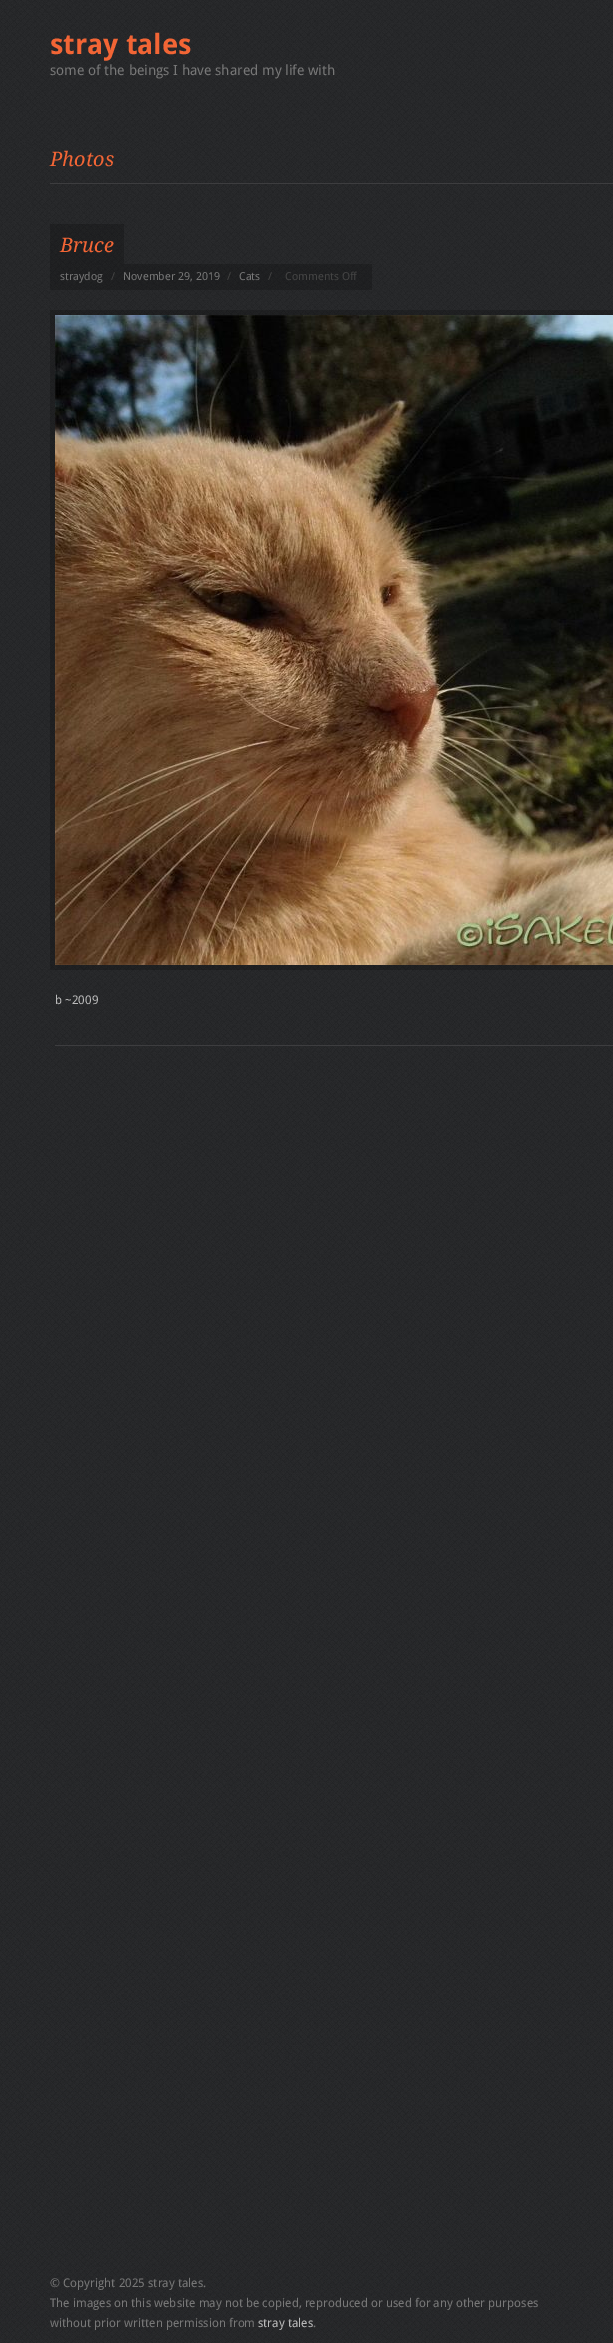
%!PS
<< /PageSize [613 2343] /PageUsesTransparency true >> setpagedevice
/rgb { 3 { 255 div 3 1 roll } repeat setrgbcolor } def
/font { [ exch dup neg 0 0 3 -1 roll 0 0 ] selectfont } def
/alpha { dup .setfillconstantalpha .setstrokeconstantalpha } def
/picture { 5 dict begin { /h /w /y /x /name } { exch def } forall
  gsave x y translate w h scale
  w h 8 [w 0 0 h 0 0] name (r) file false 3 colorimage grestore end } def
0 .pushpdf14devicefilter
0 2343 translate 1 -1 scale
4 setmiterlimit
255 255 255 rgb
0 0 613 2343 rectfill
(img/1.rgb) 0 0 613 2343 picture
[
  [50 183 563 1 61 61 63]
] { aload pop rgb rectfill } forall
0.2 alpha
[
  [50 224 74 40 0 0 0]
  [50 264 322 26 0 0 0]
  [50 310 563 660 0 0 0]
] { aload pop rgb rectfill } forall
1 alpha
(img/2.rgb) 55 315 558 650 picture
61 61 63 rgb
55 1045 558 1 rectfill
/DroidSans-Bold 28 font
242 101 53 rgb
50 54 moveto (stray tales) show
/DroidSans-Regular 14 font
119 119 119 rgb
50 75 moveto (some of the beings I have shared my life with) show
/DroidSerif-Italic 20 font
242 101 53 rgb
50 166 moveto (Photos) show
60 252 moveto (Bruce) show
/DroidSans-Regular 11 font
119 119 119 rgb
60 280 moveto (straydog) show
68 68 68 rgb
111 280 moveto (/) show
119 119 119 rgb
123 280 moveto (November 29, 2019) show
68 68 68 rgb
227 280 moveto (/) show
119 119 119 rgb
239 280 moveto (Cats) show
68 68 68 rgb
268 280 moveto (/) show
285 280 moveto (Comments Off) show
/DroidSans-Regular 12 font
187 187 187 rgb
55 1004 moveto (b ~2009) show
119 119 119 rgb
[
  [(© Copyright 2025 stray tales.) 50 2287]
  [(The images on this website may not be copied, reproduced or used for any other purposes) 50 2307]
  [(without prior written permission from) 50 2327]
] { aload pop moveto show } forall
187 187 187 rgb
258 2327 moveto (stray tales) show
119 119 119 rgb
313 2327 moveto (.) show
.poppdf14devicefilter showpage
